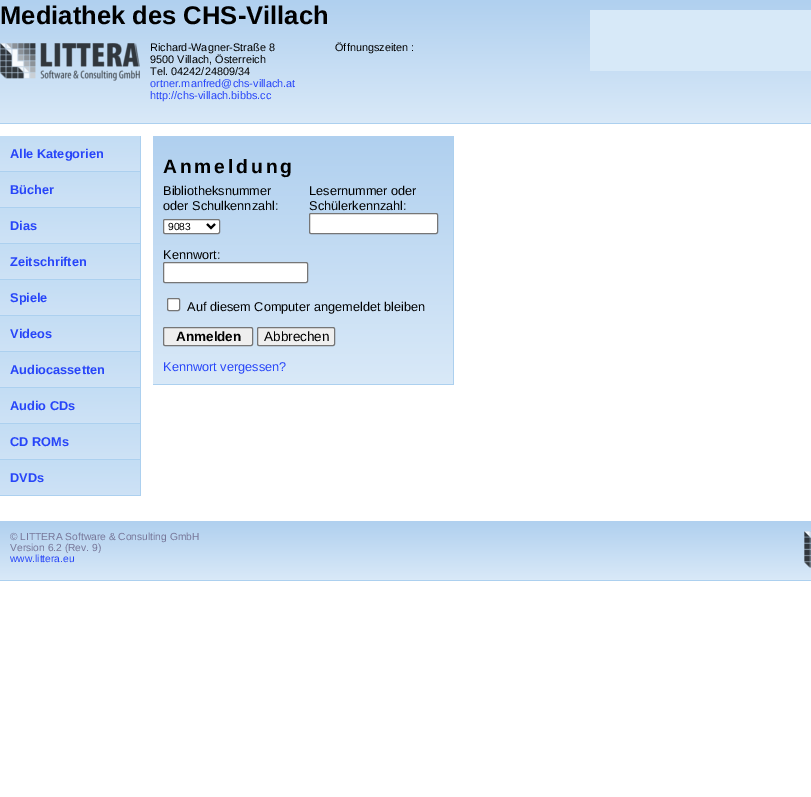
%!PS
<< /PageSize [811 797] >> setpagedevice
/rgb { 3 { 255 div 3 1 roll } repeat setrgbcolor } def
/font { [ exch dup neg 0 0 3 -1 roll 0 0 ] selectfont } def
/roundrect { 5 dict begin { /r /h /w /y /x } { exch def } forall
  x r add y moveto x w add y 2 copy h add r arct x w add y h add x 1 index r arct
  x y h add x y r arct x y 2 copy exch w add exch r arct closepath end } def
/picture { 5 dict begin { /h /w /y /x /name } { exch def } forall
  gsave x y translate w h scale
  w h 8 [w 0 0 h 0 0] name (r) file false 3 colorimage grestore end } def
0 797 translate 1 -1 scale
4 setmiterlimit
255 255 255 rgb
0 0 811 797 rectfill
gsave 0 0 moveto 811 0 lineto 811 123 lineto 0 123 lineto closepath clip newpath
<< /ShadingType 2 /ColorSpace /DeviceRGB /Coords [406 0 406 123] /Extend [true true] /Function << /FunctionType 2 /Domain [0 1] /C0 [0.69 0.816 0.937] /C1 [0.851 0.914 0.973] /N 1 >> >> shfill grestore
172 208 239 rgb
0 123 811 1 rectfill
(img/1.rgb) 0 43 140 38 picture
215 233 248 rgb
590 10 221 61 rectfill
gsave 0 136 moveto 140 136 lineto 140 171 lineto 0 171 lineto closepath clip newpath
<< /ShadingType 2 /ColorSpace /DeviceRGB /Coords [70 136 70 171] /Extend [true true] /Function << /FunctionType 2 /Domain [0 1] /C0 [0.765 0.867 0.957] /C1 [0.808 0.886 0.965] /N 1 >> >> shfill grestore
172 208 239 rgb
140 136 1 360 rectfill
0 171 141 1 rectfill
gsave 0 172 moveto 140 172 lineto 140 207 lineto 0 207 lineto closepath clip newpath
<< /ShadingType 2 /ColorSpace /DeviceRGB /Coords [70 172 70 207] /Extend [true true] /Function << /FunctionType 2 /Domain [0 1] /C0 [0.765 0.867 0.957] /C1 [0.808 0.886 0.965] /N 1 >> >> shfill grestore
0 207 141 1 rectfill
gsave 0 208 moveto 140 208 lineto 140 243 lineto 0 243 lineto closepath clip newpath
<< /ShadingType 2 /ColorSpace /DeviceRGB /Coords [70 208 70 243] /Extend [true true] /Function << /FunctionType 2 /Domain [0 1] /C0 [0.765 0.867 0.957] /C1 [0.808 0.886 0.965] /N 1 >> >> shfill grestore
0 243 141 1 rectfill
gsave 0 244 moveto 140 244 lineto 140 279 lineto 0 279 lineto closepath clip newpath
<< /ShadingType 2 /ColorSpace /DeviceRGB /Coords [70 244 70 279] /Extend [true true] /Function << /FunctionType 2 /Domain [0 1] /C0 [0.765 0.867 0.957] /C1 [0.808 0.886 0.965] /N 1 >> >> shfill grestore
0 279 141 1 rectfill
gsave 0 280 moveto 140 280 lineto 140 315 lineto 0 315 lineto closepath clip newpath
<< /ShadingType 2 /ColorSpace /DeviceRGB /Coords [70 280 70 315] /Extend [true true] /Function << /FunctionType 2 /Domain [0 1] /C0 [0.765 0.867 0.957] /C1 [0.808 0.886 0.965] /N 1 >> >> shfill grestore
0 315 141 1 rectfill
gsave 0 316 moveto 140 316 lineto 140 351 lineto 0 351 lineto closepath clip newpath
<< /ShadingType 2 /ColorSpace /DeviceRGB /Coords [70 316 70 351] /Extend [true true] /Function << /FunctionType 2 /Domain [0 1] /C0 [0.765 0.867 0.957] /C1 [0.808 0.886 0.965] /N 1 >> >> shfill grestore
0 351 141 1 rectfill
gsave 0 352 moveto 140 352 lineto 140 387 lineto 0 387 lineto closepath clip newpath
<< /ShadingType 2 /ColorSpace /DeviceRGB /Coords [70 352 70 387] /Extend [true true] /Function << /FunctionType 2 /Domain [0 1] /C0 [0.765 0.867 0.957] /C1 [0.808 0.886 0.965] /N 1 >> >> shfill grestore
0 387 141 1 rectfill
gsave 0 388 moveto 140 388 lineto 140 423 lineto 0 423 lineto closepath clip newpath
<< /ShadingType 2 /ColorSpace /DeviceRGB /Coords [70 388 70 423] /Extend [true true] /Function << /FunctionType 2 /Domain [0 1] /C0 [0.765 0.867 0.957] /C1 [0.808 0.886 0.965] /N 1 >> >> shfill grestore
0 423 141 1 rectfill
gsave 0 424 moveto 140 424 lineto 140 459 lineto 0 459 lineto closepath clip newpath
<< /ShadingType 2 /ColorSpace /DeviceRGB /Coords [70 424 70 459] /Extend [true true] /Function << /FunctionType 2 /Domain [0 1] /C0 [0.765 0.867 0.957] /C1 [0.808 0.886 0.965] /N 1 >> >> shfill grestore
0 459 141 1 rectfill
gsave 0 460 moveto 140 460 lineto 140 495 lineto 0 495 lineto closepath clip newpath
<< /ShadingType 2 /ColorSpace /DeviceRGB /Coords [70 460 70 495] /Extend [true true] /Function << /FunctionType 2 /Domain [0 1] /C0 [0.765 0.867 0.957] /C1 [0.808 0.886 0.965] /N 1 >> >> shfill grestore
0 495 141 1 rectfill
gsave 153 136 moveto 453 136 lineto 453 384 lineto 153 384 lineto closepath clip newpath
<< /ShadingType 2 /ColorSpace /DeviceRGB /Coords [303 136 303 384] /Extend [true true] /Function << /FunctionType 2 /Domain [0 1] /C0 [0.69 0.816 0.937] /C1 [0.851 0.914 0.973] /N 1 >> >> shfill grestore
453 136 1 249 rectfill
153 384 301 1 rectfill
255 255 255 rgb
163.5 219.5 56 14 1.5 roundrect gsave fill grestore
118 118 118 rgb
stroke
0 0 0 rgb
2 setlinewidth
207 224 moveto 211 228 lineto 215 224 lineto stroke
255 255 255 rgb
309.5 213.5 128 20 1.5 roundrect gsave fill grestore
118 118 118 rgb
1 setlinewidth
stroke
255 255 255 rgb
163.5 262.5 144 20 1.5 roundrect gsave fill grestore
118 118 118 rgb
stroke
255 255 255 rgb
167.5 298.5 12 12 1.5 roundrect gsave fill grestore
118 118 118 rgb
stroke
239 239 239 rgb
163.5 327.5 89 18 1.5 roundrect gsave fill grestore
118 118 118 rgb
stroke
239 239 239 rgb
257.5 327.5 77 18 1.5 roundrect gsave fill grestore
118 118 118 rgb
stroke
gsave 0 521 moveto 811 521 lineto 811 580 lineto 0 580 lineto closepath clip newpath
<< /ShadingType 2 /ColorSpace /DeviceRGB /Coords [480 521 480 580] /Extend [true true] /Function << /FunctionType 2 /Domain [0 1] /C0 [0.69 0.816 0.937] /C1 [0.851 0.914 0.973] /N 1 >> >> shfill grestore
172 208 239 rgb
0 580 811 1 rectfill
(img/2.rgb) 804 531 7 37 picture
/LiberationSans-Bold 25.6 font
0 0 0 rgb
0 24 moveto (Mediathek des CHS-Villach) show
/LiberationSans-Regular 10.9 font
[
  [(Richard-Wagner-Straße 8) 150 51]
  [(9500 Villach, Österreich) 150 63]
  [(Tel. 04242/24809/34) 150 75]
] { aload pop moveto show } forall
39 69 249 rgb
150 87 moveto (ortner.manfred@chs-villach.at) show
150 99 moveto (http://chs-villach.bibbs.cc) show
0 0 0 rgb
335 51 moveto (Öffnungszeiten :) show
/LiberationSans-Bold 12.75 font
39 69 249 rgb
[
  [(Alle Kategorien) 10 158]
  [(Bücher) 10 194]
  [(Dias) 10 230]
  [(Zeitschriften) 10 266]
  [(Spiele) 10 302]
  [(Videos) 10 338]
  [(Audiocassetten) 10 374]
  [(Audio CDs) 10 410]
  [(CD ROMs) 10 446]
  [(DVDs) 10 482]
] { aload pop moveto show } forall
/LiberationSans-Bold 19.25 font
0 0 0 rgb
163 173 moveto 2.9 0 (Anmeldung) ashow
/LiberationSans-Regular 12.75 font
[
  [(Bibliotheksnummer) 163 195]
  [(oder Schulkennzahl:) 163 210]
  [(Lesernummer oder) 309 195]
  [(Schülerkennzahl:) 309 210]
] { aload pop moveto show } forall
/LiberationSans-Regular 10.25 font
168 230 moveto (9083) show
/LiberationSans-Regular 12.75 font
163 259 moveto (Kennwort:) show
187 311 moveto (Auf diesem Computer angemeldet bleiben) show
/LiberationSans-Bold 13.5 font
176 341 moveto (Anmelden) show
/LiberationSans-Regular 13.5 font
264 341 moveto (Abbrechen) show
/LiberationSans-Regular 12.75 font
39 69 249 rgb
163 371 moveto (Kennwort vergessen?) show
/LiberationSans-Regular 10.25 font
119 119 153 rgb
10 540 moveto (© LITTERA Software & Consulting GmbH) show
10 551 moveto (Version 6.2 \(Rev. 9\)) show
39 69 249 rgb
10 562 moveto (www.littera.eu) show
showpage
